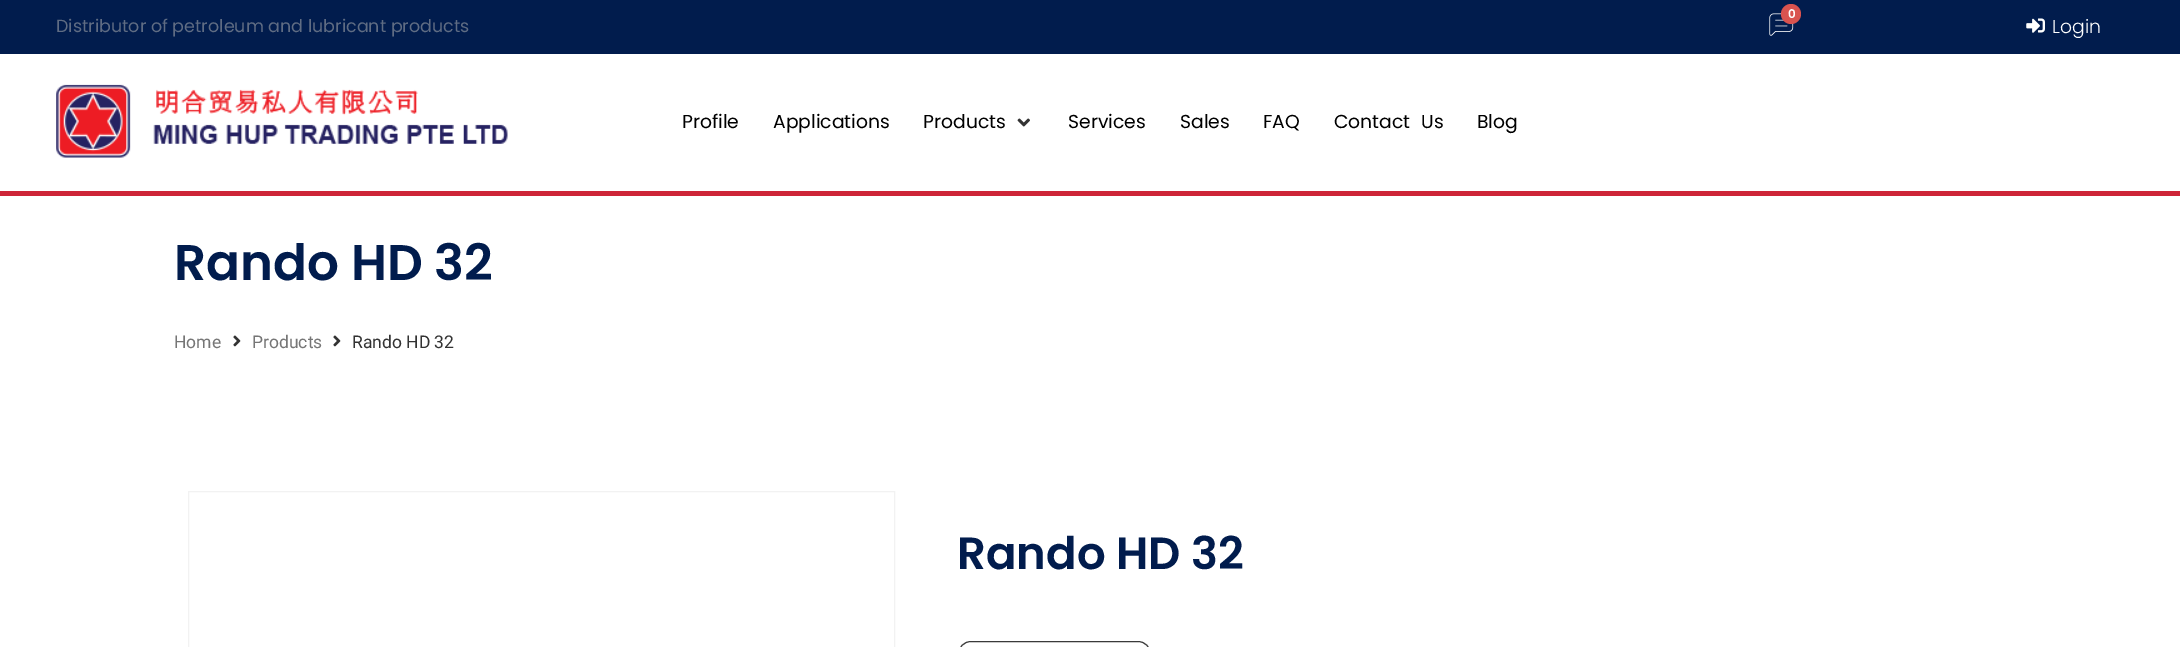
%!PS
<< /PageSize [2180 647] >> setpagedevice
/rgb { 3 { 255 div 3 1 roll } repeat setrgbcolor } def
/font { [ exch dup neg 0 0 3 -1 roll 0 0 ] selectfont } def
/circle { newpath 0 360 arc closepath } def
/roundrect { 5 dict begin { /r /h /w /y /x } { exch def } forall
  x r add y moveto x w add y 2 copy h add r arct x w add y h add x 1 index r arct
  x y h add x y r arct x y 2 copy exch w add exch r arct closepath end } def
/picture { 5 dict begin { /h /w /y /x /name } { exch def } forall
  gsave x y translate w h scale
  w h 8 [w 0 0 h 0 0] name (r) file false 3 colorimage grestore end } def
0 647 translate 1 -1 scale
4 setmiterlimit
255 255 255 rgb
0 0 2180 647 rectfill
1 28 77 rgb
0 0 2180 54 rectfill
(img/1.rgb) 1769 13 25 23 picture
217 83 79 rgb
1791 14 10 circle fill
(img/2.rgb) 2026 18 19 15 picture
206 37 56 rgb
0 191 2180 5 rectfill
(img/3.rgb) 56 84 452 74 picture
(img/4.rgb) 1017 118 13 9 picture
(img/5.rgb) 233 335 8 12 picture
(img/5.rgb) 333 335 8 12 picture
242 242 242 rgb
188.5 491.5 706 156 rectstroke
58 58 58 rgb
958.5 641.5 192 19 12.5 roundrect stroke
/Poppins-SemiBold 12 font
255 255 255 rgb
1788 18 moveto (0) show
/Poppins-Regular 17.5 font
95 108 131 rgb
56 32 moveto (Distributor of petroleum and lubricant products) show
/Poppins-Light 18.75 font
255 255 255 rgb
2052 33 moveto (Login) show
/Poppins-Regular 18.75 font
0 0 0 rgb
[
  [(Profile) 682 128]
  [(Applications) 773 128]
  [(Products) 923 128]
  [(Services) 1068 128]
  [(Sales) 1180 128]
  [(FAQ) 1263 128]
] { aload pop moveto show } forall
1334 128 moveto 6 0 32 (Contact Us) widthshow
1477 128 moveto (Blog) show
/Poppins-SemiBold 50 font
1 28 77 rgb
174 280 moveto (Rando HD 32) show
/Roboto-Regular 17.5 font
118 118 118 rgb
174 348 moveto (Home) show
252 348 moveto (Products) show
51 51 51 rgb
352 348 moveto (Rando HD 32) show
/Poppins-SemiBold 45 font
1 28 77 rgb
957 569 moveto (Rando HD 32) show
showpage
